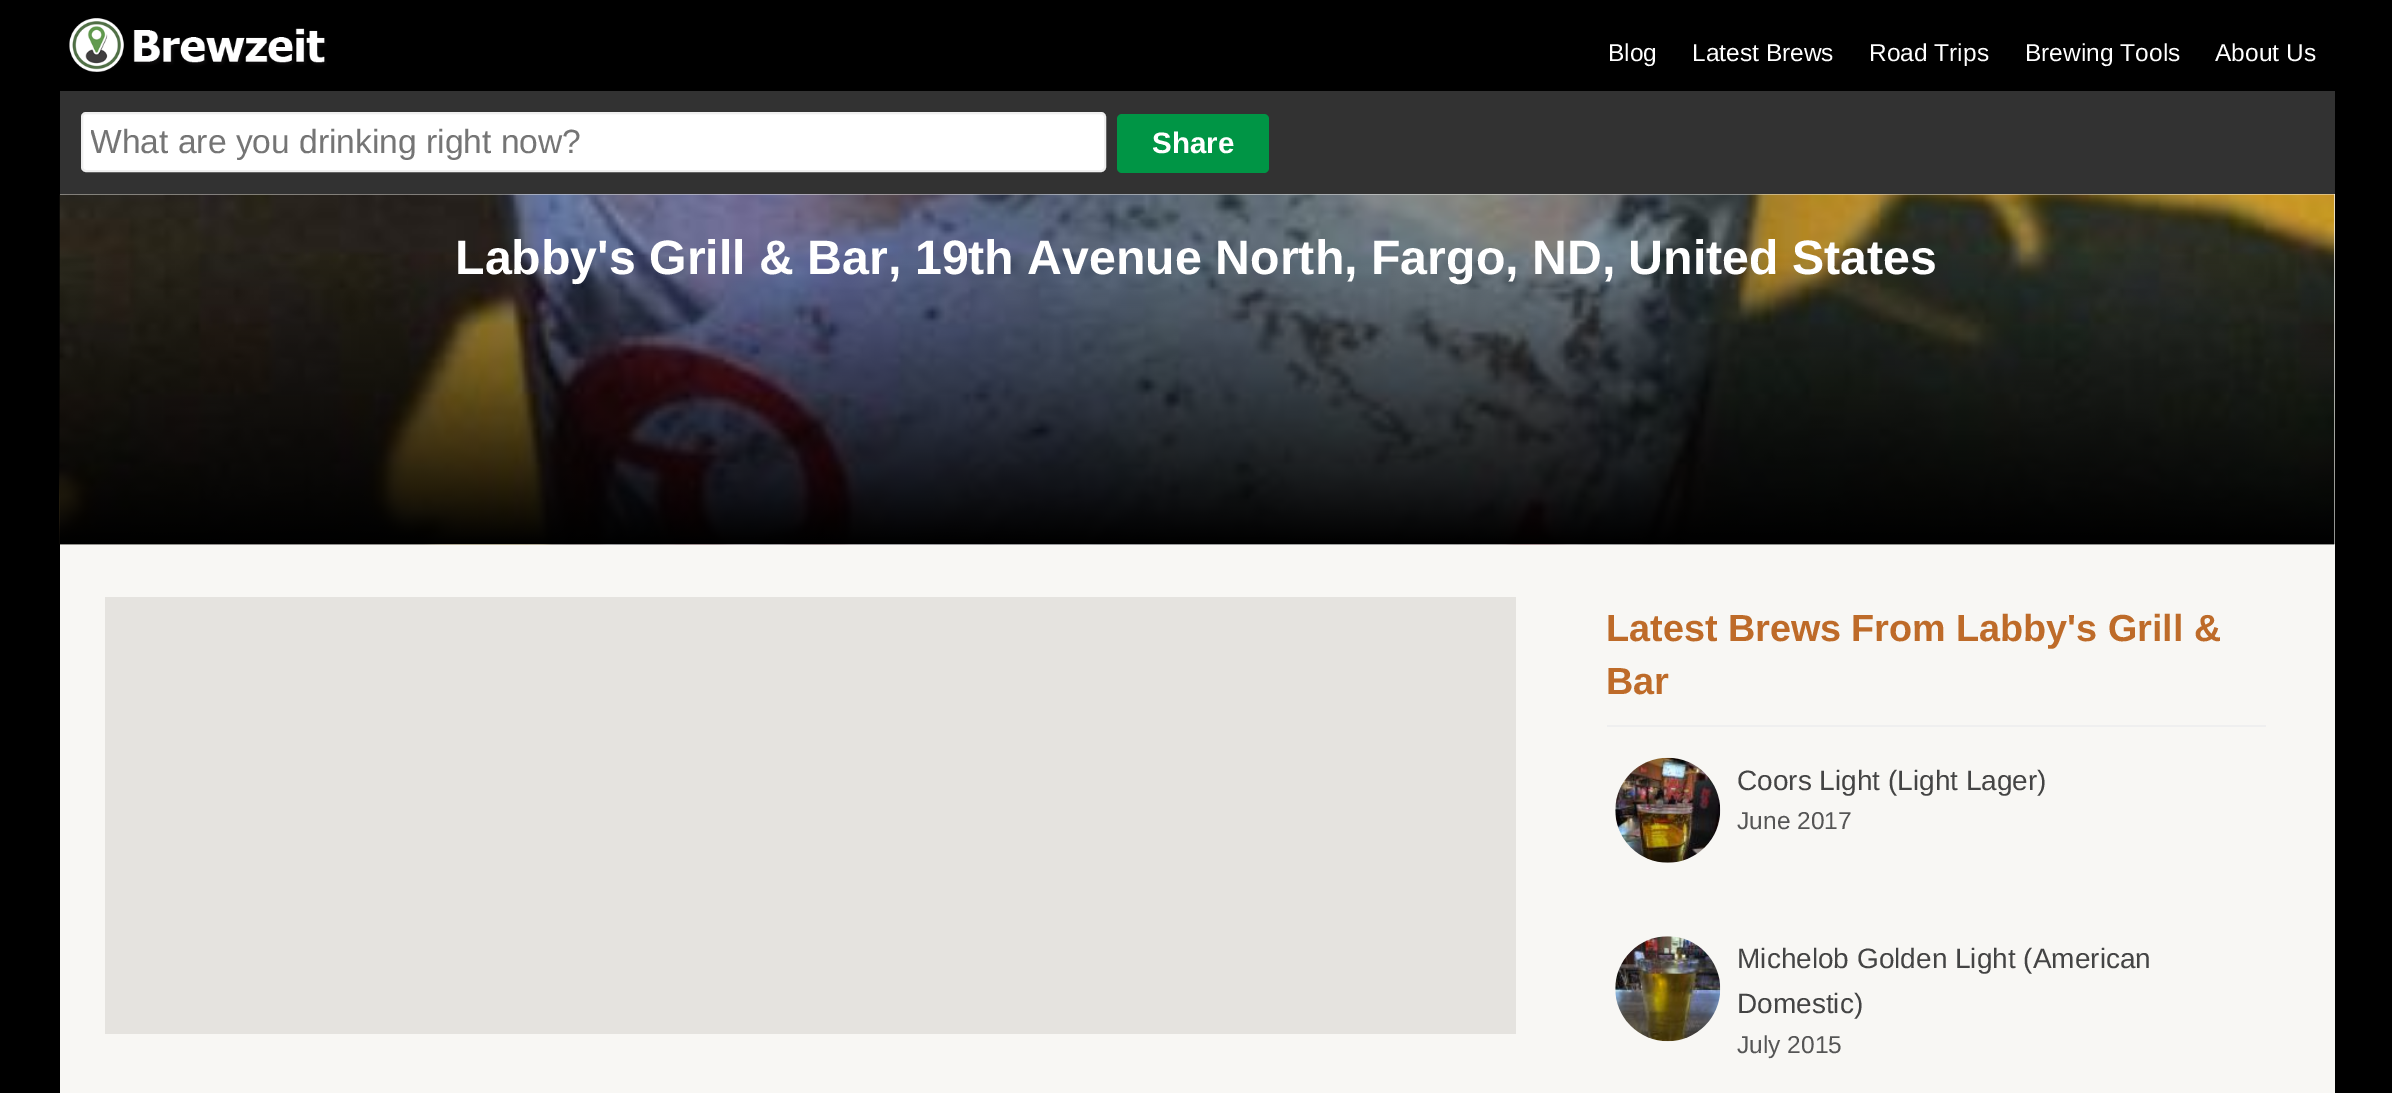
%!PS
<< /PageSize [2392 1093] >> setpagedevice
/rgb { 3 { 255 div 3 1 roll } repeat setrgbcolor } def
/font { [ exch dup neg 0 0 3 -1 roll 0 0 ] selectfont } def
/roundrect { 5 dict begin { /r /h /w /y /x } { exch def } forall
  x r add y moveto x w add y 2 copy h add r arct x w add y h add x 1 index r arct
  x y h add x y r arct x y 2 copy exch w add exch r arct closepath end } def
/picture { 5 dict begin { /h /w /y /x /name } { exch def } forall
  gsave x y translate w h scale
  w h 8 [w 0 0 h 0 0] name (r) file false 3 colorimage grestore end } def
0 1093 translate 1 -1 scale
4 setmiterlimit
0 0 0 rgb
0 0 2392 1093 rectfill
(img/1.rgb) 69 18 258 54 picture
50 50 50 rgb
60 91 2275 103 rectfill
255 255 255 rgb
82 113 1023 58 4 roundrect gsave fill grestore
239 239 239 rgb
2 setlinewidth
stroke
0 149 69 rgb
1117 114 152 59 5 roundrect fill
248 247 244 rgb
60 194 2275 899 rectfill
(img/2.rgb) 59 194 2276 351 picture
229 227 223 rgb
105 597 1411 437 rectfill
239 239 239 rgb
1607 725 659 2 rectfill
(img/3.rgb) 1615 757 106 106 picture
(img/4.rgb) 1615 936 106 106 picture
/LiberationSans-Regular 24.5 font
255 255 255 rgb
[
  [(Blog) 1608 61]
  [(Latest Brews) 1692 61]
  [(Road Trips) 1869 61]
  [(Brewing Tools) 2025 61]
  [(About Us) 2215 61]
] { aload pop moveto show } forall
gsave
91 123 1005 38 rectclip
/LiberationSans-Regular 33.6 font
117 117 117 rgb
90 153 moveto (What are you drinking right now?) show
grestore
/LiberationSans-Bold 29.5 font
1152 153 moveto (Share) show
/LiberationSans-Bold 48.3 font
455 274 moveto (Labby's Grill & Bar, 19th Avenue North, Fargo, ND, United States) show
/LiberationSans-Bold 37.75 font
190 107 41 rgb
1606 641 moveto (Latest Brews From Labby's Grill &) show
1606 694 moveto (Bar) show
/LiberationSans-Regular 28 font
68 68 68 rgb
1737 790 moveto (Coors Light \(Light Lager\)) show
/LiberationSans-Regular 24.5 font
85 85 85 rgb
1737 829 moveto (June 2017) show
/LiberationSans-Regular 28 font
68 68 68 rgb
1737 968 moveto (Michelob Golden Light \(American) show
1737 1013 moveto (Domestic\)) show
/LiberationSans-Regular 24.5 font
85 85 85 rgb
1737 1053 moveto (July 2015) show
showpage
